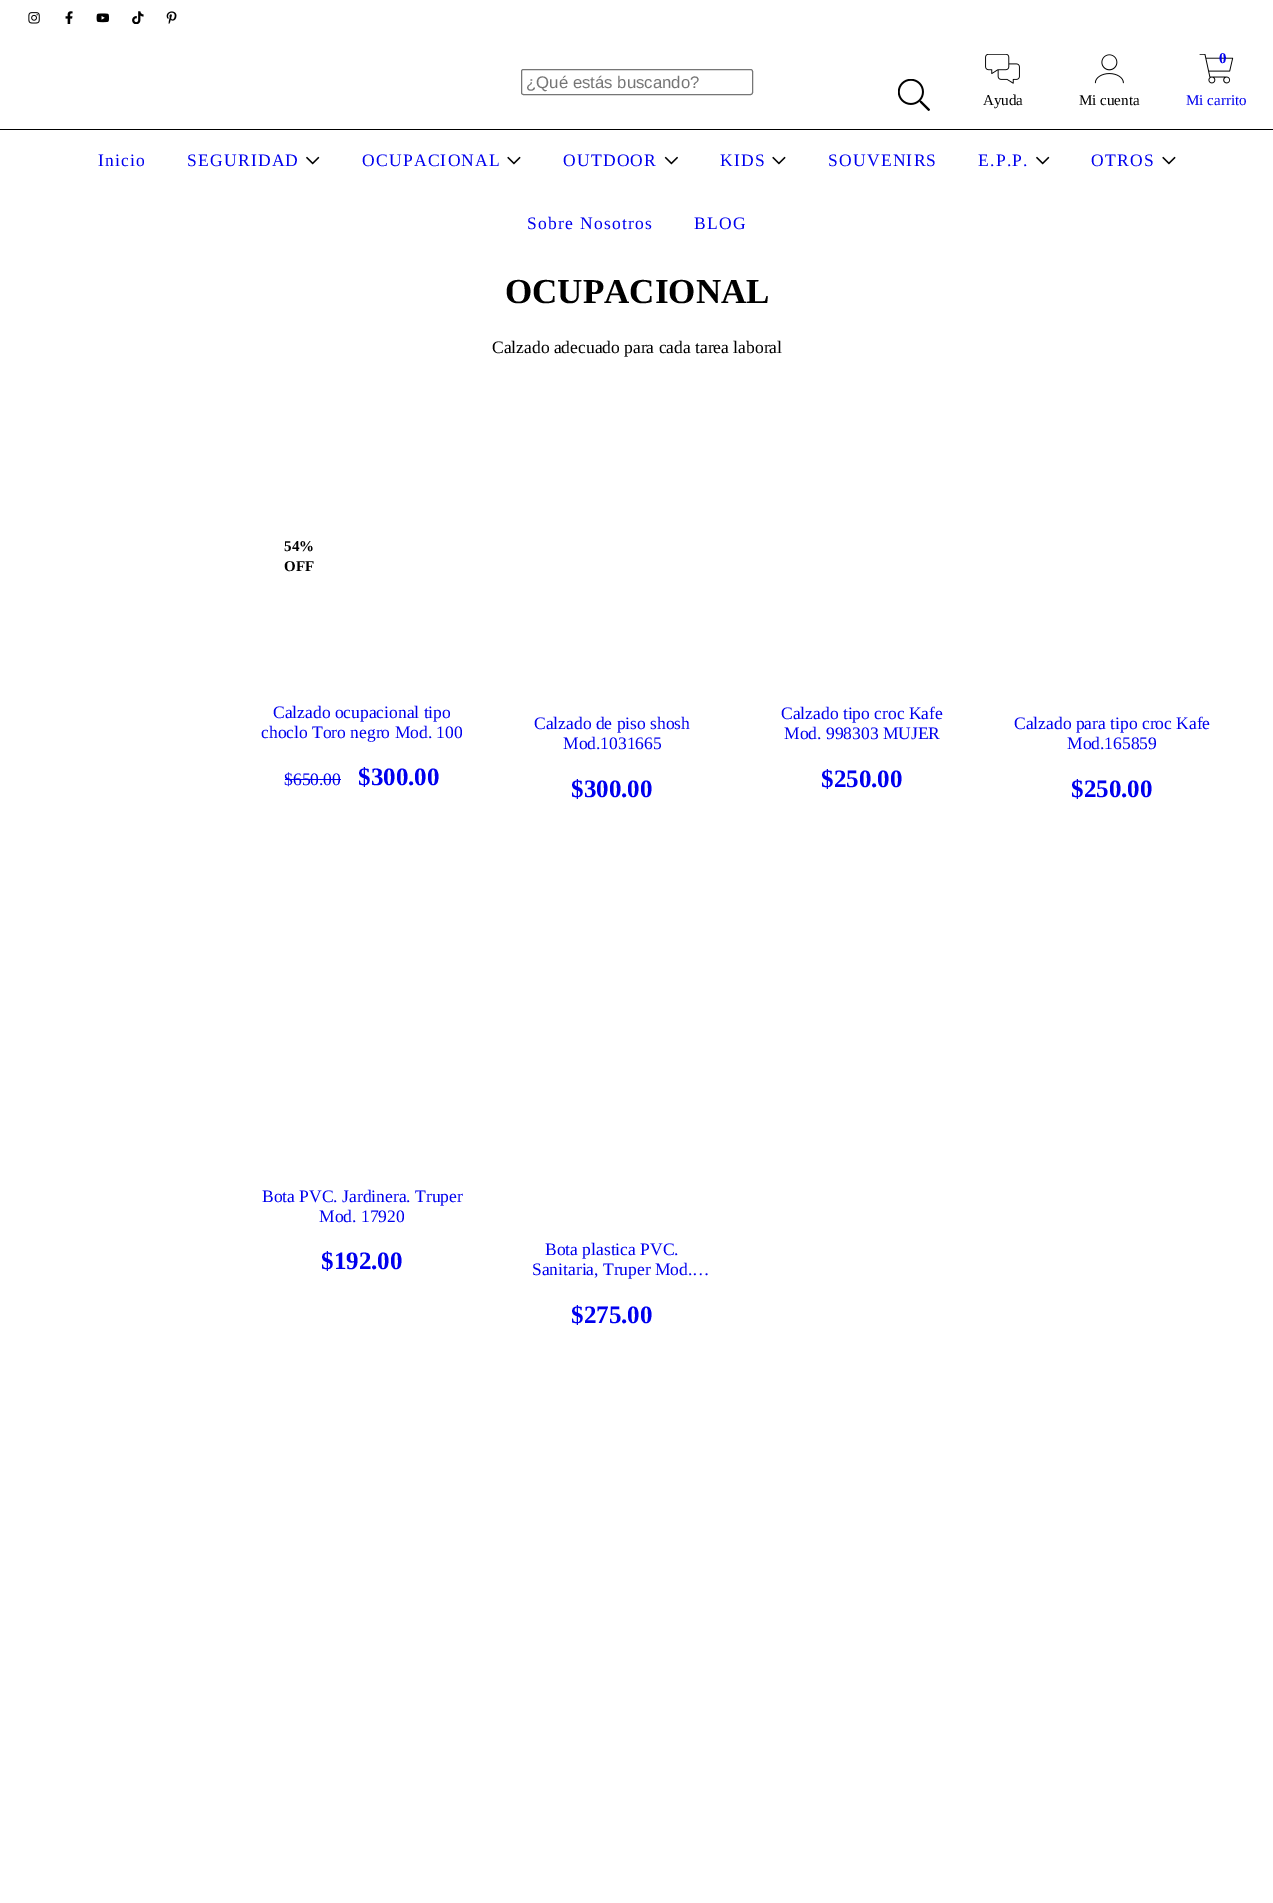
%!PS
<< /PageSize [1273 1903] >> setpagedevice
/rgb { 3 { 255 div 3 1 roll } repeat setrgbcolor } def
/font { [ exch dup neg 0 0 3 -1 roll 0 0 ] selectfont } def
/roundrect { 5 dict begin { /r /h /w /y /x } { exch def } forall
  x r add y moveto x w add y 2 copy h add r arct x w add y h add x 1 index r arct
  x y h add x y r arct x y 2 copy exch w add exch r arct closepath end } def
/picture { 5 dict begin { /h /w /y /x /name } { exch def } forall
  gsave x y translate w h scale
  w h 8 [w 0 0 h 0 0] name (r) file false 3 colorimage grestore end } def
0 1903 translate 1 -1 scale
4 setmiterlimit
255 255 255 rgb
0 0 1273 1903 rectfill
(img/1.rgb) 28 12 12 12 picture
(img/2.rgb) 65 11 8 13 picture
(img/3.rgb) 96 13 13 10 picture
(img/4.rgb) 132 11 12 13 picture
(img/5.rgb) 166 11 11 13 picture
118 118 118 rgb
521.5 69.5 231 25 2 roundrect stroke
(img/6.rgb) 898 79 32 32 picture
(img/7.rgb) 985 54 35 30 picture
(img/8.rgb) 1094 54 30 30 picture
(img/9.rgb) 1199 54 35 30 picture
0 0 0 rgb
0 129 1273 1 rectfill
(img/10.rgb) 306 156 14 9 picture
(img/11.rgb) 507 156 14 9 picture
(img/12.rgb) 664 156 14 9 picture
(img/11.rgb) 772 156 14 9 picture
(img/10.rgb) 1036 156 14 9 picture
(img/11.rgb) 1162 156 14 9 picture
0 0 238 rgb
285 779 56 1 rectfill
/LiberationSans-Regular 16.75 font
117 117 117 rgb
526 88 moveto (¿Qué estás buscando?) show
/LiberationSerif-Regular 15 font
0 0 0 rgb
983 105 moveto (Ayuda) show
1079 105 moveto (Mi cuenta) show
/LiberationSerif-Bold 15 font
0 0 238 rgb
1219 63 moveto (0) show
/LiberationSerif-Regular 15 font
1186 105 moveto (Mi carrito) show
/LiberationSerif-Regular 17.5 font
98 166 moveto 1.25 0 (Inicio) ashow
187 166 moveto 1.25 0 (SEGURIDAD) ashow
362 166 moveto 1.25 0 (OCUPACIONAL) ashow
563 166 moveto 1.25 0 (OUTDOOR) ashow
720 166 moveto 1.25 0 (KIDS) ashow
828 166 moveto 1.25 0 (SOUVENIRS) ashow
978 166 moveto 1.25 0 (E.P.P.) ashow
1091 166 moveto 1.25 0 (OTROS) ashow
527 229 moveto 1.25 0 (Sobre Nosotros) ashow
694 229 moveto 1.25 0 (BLOG) ashow
/LiberationSerif-Bold 35 font
0 0 0 rgb
505 303 moveto (OCUPACIONAL) show
/LiberationSerif-Regular 17.5 font
492 353 moveto (Calzado adecuado para cada tarea laboral) show
/LiberationSerif-Bold 15 font
284 551 moveto (54%) show
284 571 moveto (OFF) show
/LiberationSerif-Regular 17.5 font
0 0 238 rgb
[
  [(Calzado ocupacional tipo) 273 718]
  [(choclo Toro negro Mod. 100) 261 738]
  [($650.00) 284 785]
] { aload pop moveto show } forall
/LiberationSerif-Bold 25 font
358 785 moveto ($300.00) show
/LiberationSerif-Regular 17.5 font
534 729 moveto (Calzado de piso shosh) show
563 749 moveto (Mod.1031665) show
/LiberationSerif-Bold 25 font
571 797 moveto ($300.00) show
/LiberationSerif-Regular 17.5 font
781 719 moveto (Calzado tipo croc Kafe) show
784 739 moveto (Mod. 998303 MUJER) show
/LiberationSerif-Bold 25 font
821 787 moveto ($250.00) show
/LiberationSerif-Regular 17.5 font
1014 729 moveto (Calzado para tipo croc Kafe) show
1067 749 moveto (Mod.165859) show
/LiberationSerif-Bold 25 font
1071 797 moveto ($250.00) show
/LiberationSerif-Regular 17.5 font
262 1202 moveto (Bota PVC. Jardinera. Truper) show
319 1222 moveto (Mod. 17920) show
/LiberationSerif-Bold 25 font
321 1269 moveto ($192.00) show
/LiberationSerif-Regular 17.5 font
545 1255 moveto (Bota plastica PVC.) show
532 1275 moveto (Sanitaria, Truper Mod.…) show
/LiberationSerif-Bold 25 font
571 1323 moveto ($275.00) show
showpage
